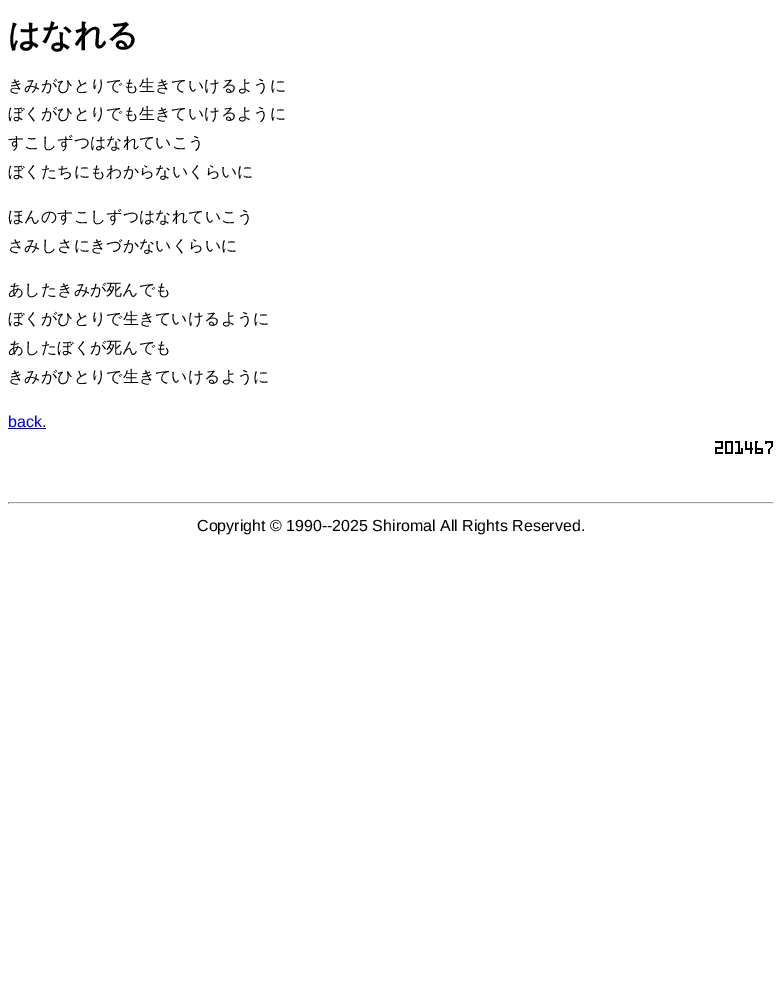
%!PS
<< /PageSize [782 986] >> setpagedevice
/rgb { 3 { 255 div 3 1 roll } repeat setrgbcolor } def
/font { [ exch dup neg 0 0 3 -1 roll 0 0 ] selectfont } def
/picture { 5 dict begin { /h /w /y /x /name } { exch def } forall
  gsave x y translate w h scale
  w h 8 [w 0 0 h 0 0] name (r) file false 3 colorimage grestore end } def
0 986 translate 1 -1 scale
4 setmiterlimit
255 255 255 rgb
0 0 782 986 rectfill
0 0 238 rgb
8 428 38 1 rectfill
(img/1.rgb) 715 441 58 13 picture
[
  [8 502 766 1 159 159 159]
  [773 502 1 2 238 238 238]
  [8 503 766 1 238 238 238]
  [8 502 1 2 159 159 159]
] { aload pop rgb rectfill } forall
/WenQuanYiZenHei-Bold 32 font
0 0 0 rgb
8 46 moveto (はなれる) show
/WenQuanYiZenHei-Medium 16 font
[
  [(きみがひとりでも生きていけるように) 8 91]
  [(ぼくがひとりでも生きていけるように) 8 119]
  [(すこしずつはなれていこう) 8 148]
  [(ぼくたちにもわからないくらいに) 8 177]
  [(ほんのすこしずつはなれていこう) 8 222]
  [(さみしさにきづかないくらいに) 8 251]
  [(あしたきみが死んでも) 8 295]
  [(ぼくがひとりで生きていけるように) 8 324]
  [(あしたぼくが死んでも) 8 353]
  [(きみがひとりで生きていけるように) 8 382]
] { aload pop moveto show } forall
/LiberationSans-Regular 16 font
0 0 238 rgb
8 427 moveto (back.) show
0 0 0 rgb
197 531 moveto (Copyright © 1990--2025 Shiromal All Rights Reserved.) show
showpage
